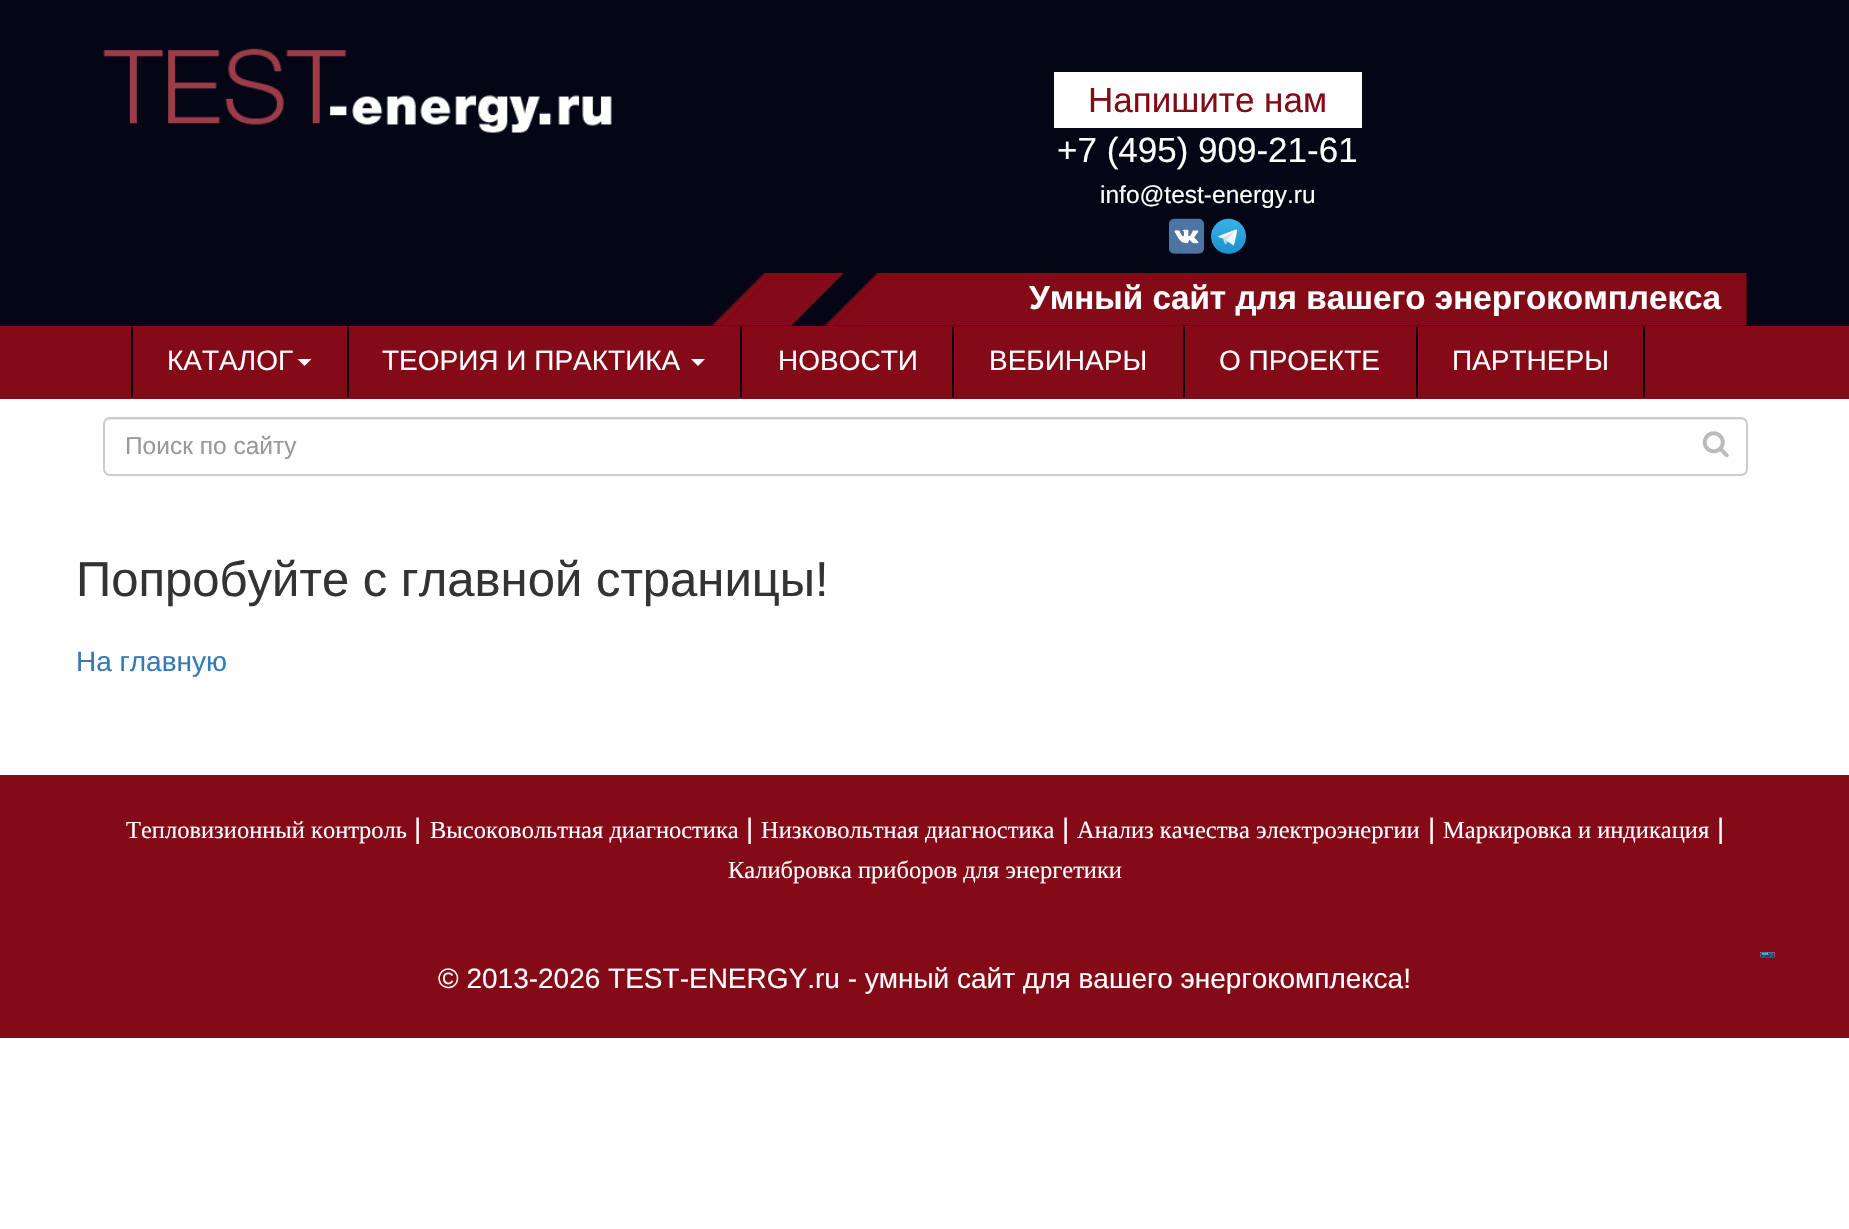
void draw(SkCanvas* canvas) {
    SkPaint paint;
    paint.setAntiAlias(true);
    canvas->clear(0xFFFFFFFF);
    paint.setColor(0xFF040616);
    canvas->drawRect(SkRect::MakeXYWH(0, 0, 1849, 326), paint);
    canvas->drawImageRect(SkImages::DeferredFromEncodedData(SkData::MakeFromFileName("img1.png")), SkRect::MakeXYWH(103, 48, 509, 85), SkSamplingOptions());
    paint.setColor(0xFFFFFFFF);
    canvas->drawRect(SkRect::MakeXYWH(1054, 72, 308, 56), paint);
    SkFont font1(fontMgr->matchFamilyStyle("Liberation Sans", SkFontStyle::Normal()), 35);
    font1.setSubpixel(true);
    paint.setColor(0xFF830A16);
    canvas->drawString("Напишите нам", 1088, 112, font1, paint);
    paint.setColor(0xFFFFFFFF);
    canvas->drawString("+7 (495) 909-21-61", 1057, 162, font1, paint);
    SkFont font2(fontMgr->matchFamilyStyle("Liberation Sans", SkFontStyle::Normal()), 24.5f);
    font2.setSubpixel(true);
    canvas->drawString("info@test-energy.ru", 1100, 203, font2, paint);
    canvas->drawImageRect(SkImages::DeferredFromEncodedData(SkData::MakeFromFileName("img2.png")), SkRect::MakeXYWH(1169, 218, 35, 36), SkSamplingOptions());
    canvas->drawImageRect(SkImages::DeferredFromEncodedData(SkData::MakeFromFileName("img3.png")), SkRect::MakeXYWH(1211, 218, 35, 36), SkSamplingOptions());
    canvas->drawImageRect(SkImages::DeferredFromEncodedData(SkData::MakeFromFileName("img4.png")), SkRect::MakeXYWH(711, 273, 1036, 53), SkSamplingOptions());
    SkFont font3(fontMgr->matchFamilyStyle("Liberation Sans", SkFontStyle::Bold()), 33.25f);
    font3.setSubpixel(true);
    canvas->drawString("Умный сайт для вашего энергокомплекса", 1029, 309, font3, paint);
    paint.setColor(0xFF830A16);
    canvas->drawRect(SkRect::MakeXYWH(0, 326, 1849, 73), paint);
    paint.setColor(0xFF000000);
    canvas->drawRect(SkRect::MakeXYWH(347, 327, 2, 70), paint);
    canvas->drawRect(SkRect::MakeXYWH(131, 327, 2, 70), paint);
    SkFont font4(fontMgr->matchFamilyStyle("Liberation Sans", SkFontStyle::Normal()), 28);
    font4.setSubpixel(true);
    paint.setColor(0xFFFFFFFF);
    canvas->drawString("КАТАЛОГ", 167, 370, font4, paint);
    canvas->drawPath(SkPathBuilder().moveTo(297.5f, 359).lineTo(311.5f, 359).lineTo(304.5f, 366).close().detach(), paint);
    paint.setColor(0xFF000000);
    canvas->drawRect(SkRect::MakeXYWH(740, 327, 2, 70), paint);
    paint.setColor(0xFFFFFFFF);
    canvas->drawString("ТЕОРИЯ И ПРАКТИКА", 382, 370, font4, paint);
    canvas->drawPath(SkPathBuilder().moveTo(691, 359).lineTo(705, 359).lineTo(698, 366).close().detach(), paint);
    paint.setColor(0xFF000000);
    canvas->drawRect(SkRect::MakeXYWH(952, 327, 2, 70), paint);
    paint.setColor(0xFFFFFFFF);
    canvas->drawString("НОВОСТИ", 778, 370, font4, paint);
    paint.setColor(0xFF000000);
    canvas->drawRect(SkRect::MakeXYWH(1183, 327, 2, 70), paint);
    paint.setColor(0xFFFFFFFF);
    canvas->drawString("ВЕБИНАРЫ", 989, 370, font4, paint);
    paint.setColor(0xFF000000);
    canvas->drawRect(SkRect::MakeXYWH(1416, 327, 2, 70), paint);
    paint.setColor(0xFFFFFFFF);
    canvas->drawString("О ПРОЕКТЕ", 1219, 370, font4, paint);
    paint.setColor(0xFF000000);
    canvas->drawRect(SkRect::MakeXYWH(1643, 327, 2, 70), paint);
    paint.setColor(0xFFFFFFFF);
    canvas->drawString("ПАРТНЕРЫ", 1452, 370, font4, paint);
    paint.setColor(0xFFECECEC);
    canvas->drawPath(SkPathBuilder().moveTo(110, 420).lineTo(1741, 420).cubicTo(1744, 420, 1746, 422, 1746, 425).lineTo(1746, 472).cubicTo(1747, 471, 1747, 470, 1747, 469).lineTo(1747, 423).cubicTo(1747, 420, 1745, 418, 1742, 418).lineTo(110, 418).cubicTo(107, 418, 105, 420, 105, 423).lineTo(105, 425).cubicTo(105, 422, 107, 420, 110, 420).close().detach(), paint);
    paint.setStyle(SkPaint::kStroke_Style);
    paint.setStrokeWidth(2);
    paint.setColor(0xFFCCCCCC);
    canvas->drawRoundRect(SkRect::MakeXYWH(104, 418, 1643, 57), 6, 6, paint);
    paint.setStyle(SkPaint::kFill_Style);
    paint.setColor(0xFF999999);
    canvas->drawString("Поиск по сайту", 125, 454, font2, paint);
    canvas->drawImageRect(SkImages::DeferredFromEncodedData(SkData::MakeFromFileName("img5.png")), SkRect::MakeXYWH(1702, 431, 27, 27), SkSamplingOptions());
    SkFont font5(fontMgr->matchFamilyStyle("Liberation Sans", SkFontStyle::Normal()), 49);
    font5.setSubpixel(true);
    paint.setColor(0xFF333333);
    canvas->drawString("Попробуйте с главной страницы!", 76, 596, font5, paint);
    paint.setColor(0xFF337AB7);
    canvas->drawString("На главную", 76, 671, font4, paint);
    paint.setColor(0xFF830A16);
    canvas->drawRect(SkRect::MakeXYWH(0, 775, 1849, 263), paint);
    SkFont font6(fontMgr->matchFamilyStyle("Liberation Serif", SkFontStyle::Normal()), 24.5f);
    font6.setSubpixel(true);
    paint.setColor(0xFFFFFFFF);
    canvas->drawString("Тепловизионный контроль", 126, 838, font6, paint);
    canvas->drawString("|", 414, 838, font4, paint);
    canvas->drawString("Высоковольтная диагностика", 430, 838, font6, paint);
    canvas->drawString("|", 746, 838, font4, paint);
    canvas->drawString("Низковольтная диагностика", 761, 838, font6, paint);
    canvas->drawString("|", 1062, 838, font4, paint);
    canvas->drawString("Анализ качества электроэнергии", 1077, 838, font6, paint);
    canvas->drawString("|", 1428, 838, font4, paint);
    canvas->drawString("Маркировка и индикация", 1443, 838, font6, paint);
    canvas->drawString("|", 1717, 838, font4, paint);
    canvas->drawString("Калибровка приборов для энергетики", 728, 878, font6, paint);
    canvas->drawImageRect(SkImages::DeferredFromEncodedData(SkData::MakeFromFileName("img6.png")), SkRect::MakeXYWH(1760, 952, 15, 6), SkSamplingOptions());
    canvas->drawString("© 2013-2026 TEST-ENERGY.ru - умный сайт для вашего энергокомплекса!", 438, 988, font4, paint);
}
